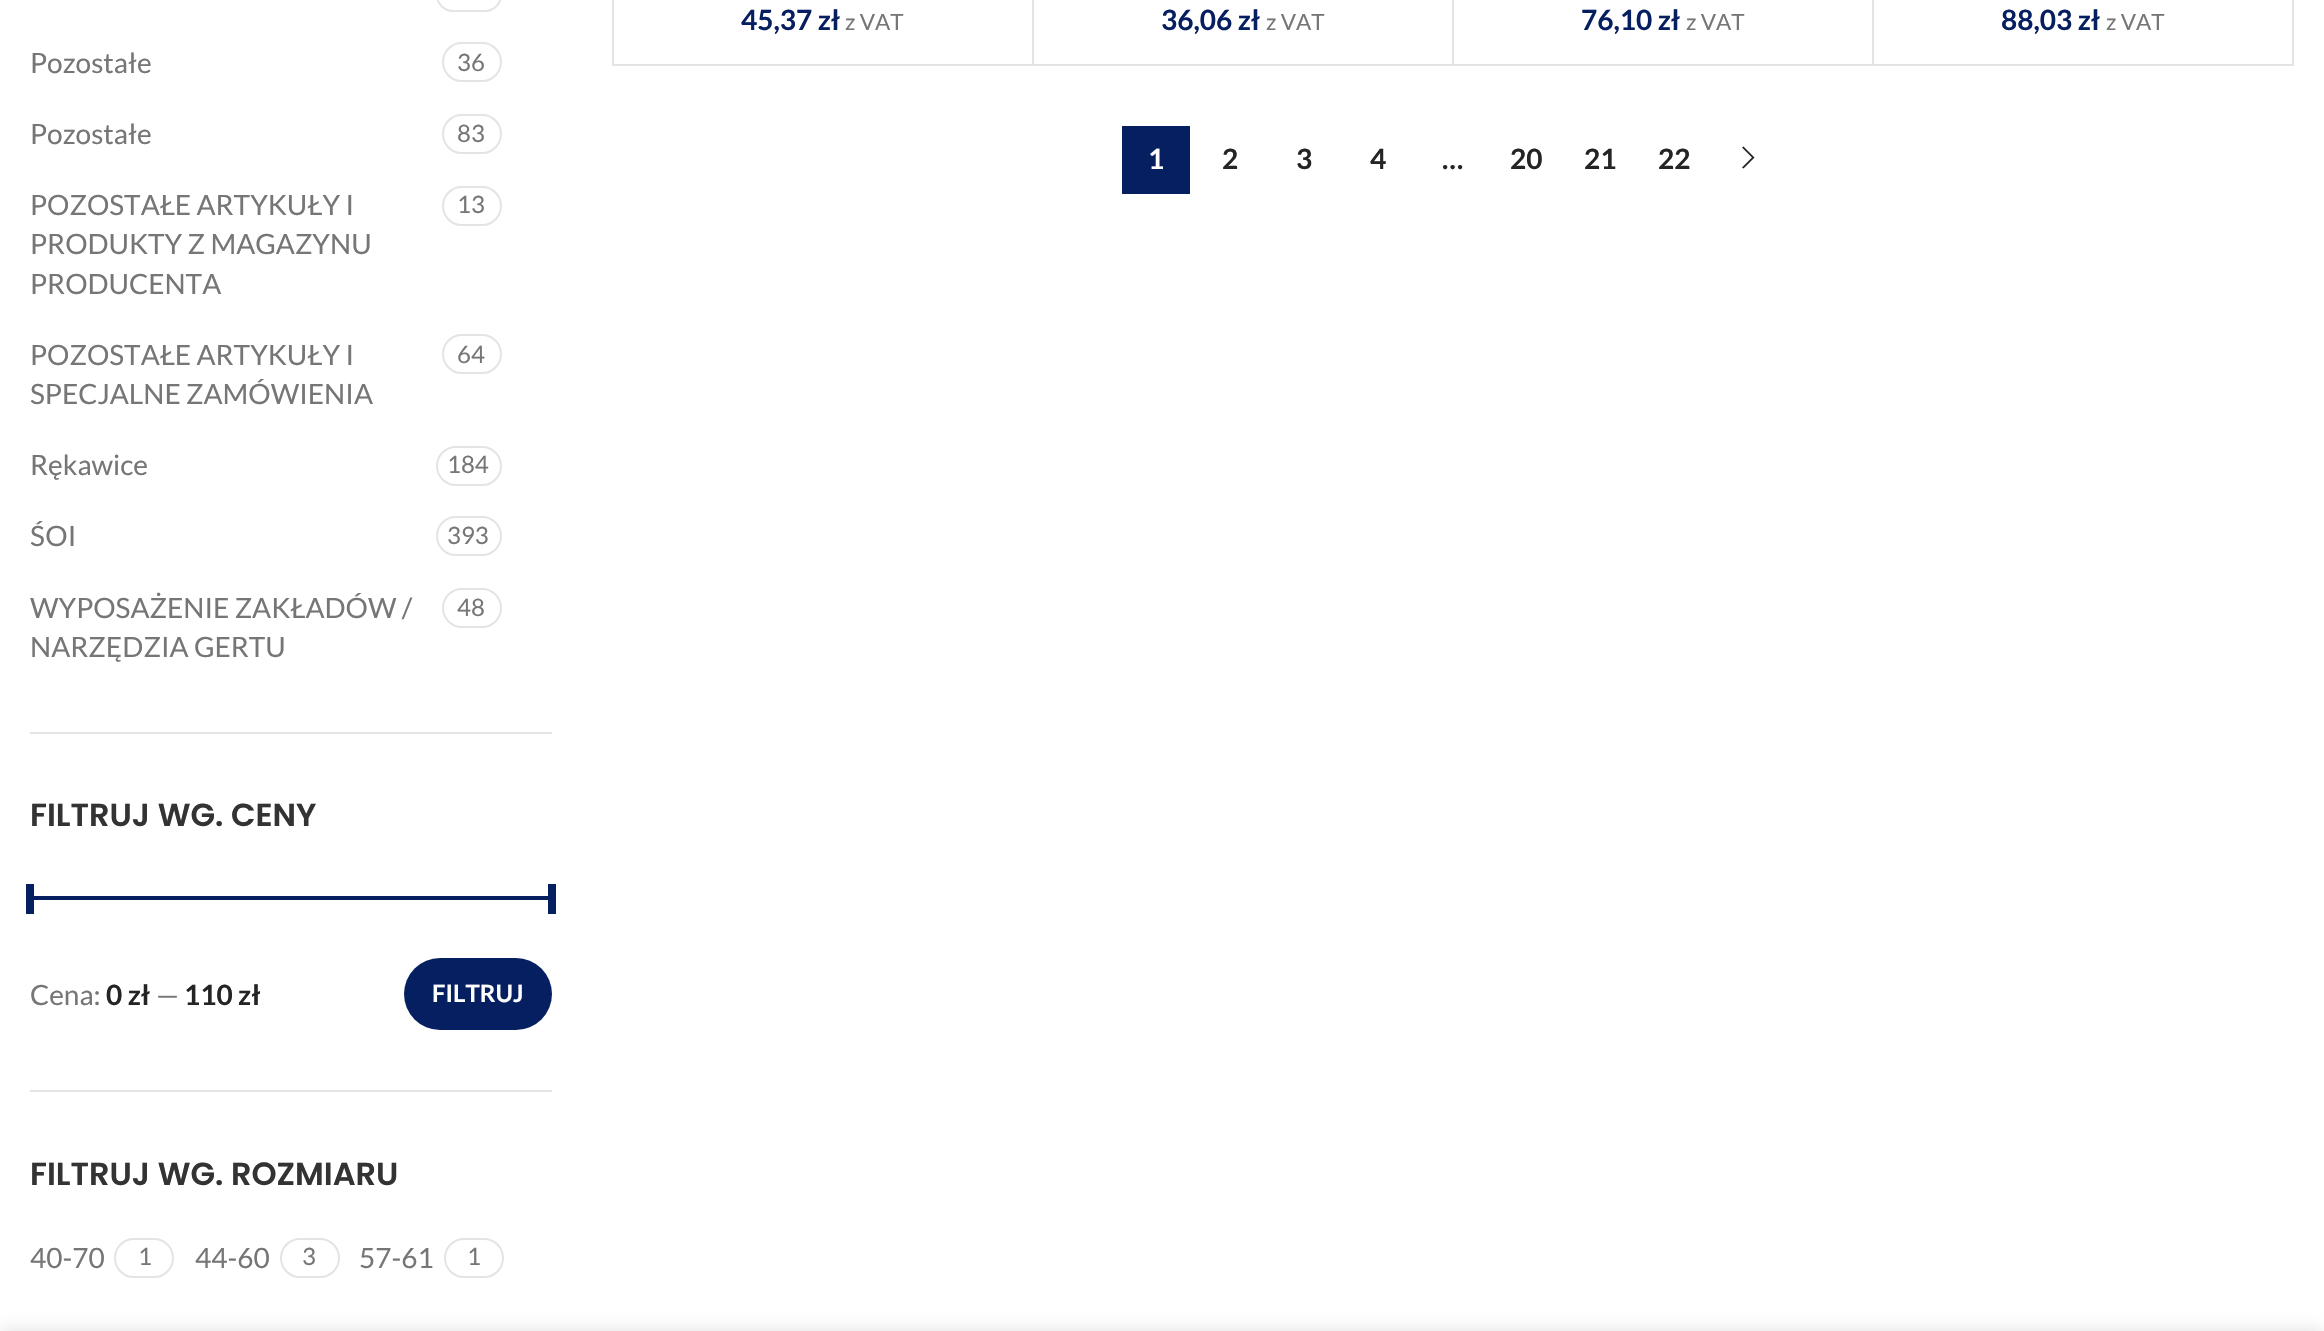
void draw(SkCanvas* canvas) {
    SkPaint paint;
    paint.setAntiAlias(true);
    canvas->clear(0xFFFFFFFF);
    paint.setColor(0xFFE4E4E4);
    canvas->drawRect(SkRect::MakeXYWH(30, 732, 522, 2), paint);
    paint.setStyle(SkPaint::kStroke_Style);
    paint.setStrokeWidth(2);
    canvas->drawRoundRect(SkRect::MakeXYWH(437, -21, 64, 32), 19, 19, paint);
    SkFont font1(fontMgr->matchFamilyStyle("Lato", SkFontStyle::Normal()), 28);
    font1.setSubpixel(true);
    paint.setStyle(SkPaint::kFill_Style);
    paint.setColor(0xFF767676);
    canvas->drawString("Pozostałe", 30, 73, font1, paint);
    paint.setStyle(SkPaint::kStroke_Style);
    paint.setColor(0xFFE4E4E4);
    canvas->drawRoundRect(SkRect::MakeXYWH(443, 43, 58, 38), 19, 19, paint);
    SkFont font2(fontMgr->matchFamilyStyle("Lato", SkFontStyle::Normal()), 24);
    font2.setSubpixel(true);
    paint.setStyle(SkPaint::kFill_Style);
    paint.setColor(0xFF767676);
    canvas->drawString("36", 457, 71, font2, paint);
    canvas->drawString("Pozostałe", 30, 144, font1, paint);
    paint.setStyle(SkPaint::kStroke_Style);
    paint.setColor(0xFFE4E4E4);
    canvas->drawRoundRect(SkRect::MakeXYWH(443, 115, 58, 38), 19, 19, paint);
    paint.setStyle(SkPaint::kFill_Style);
    paint.setColor(0xFF767676);
    canvas->drawString("83", 457, 142, font2, paint);
    canvas->drawString("POZOSTAŁE ARTYKUŁY I", 30, 215, font1, paint);
    canvas->drawString("PRODUKTY Z MAGAZYNU", 30, 254, font1, paint);
    canvas->drawString("PRODUCENTA", 30, 294, font1, paint);
    paint.setStyle(SkPaint::kStroke_Style);
    paint.setColor(0xFFE4E4E4);
    canvas->drawRoundRect(SkRect::MakeXYWH(443, 187, 58, 38), 19, 19, paint);
    paint.setStyle(SkPaint::kFill_Style);
    paint.setColor(0xFF767676);
    canvas->drawString("13", 457, 213, font2, paint);
    canvas->drawString("POZOSTAŁE ARTYKUŁY I", 30, 365, font1, paint);
    canvas->drawString("SPECJALNE ZAMÓWIENIA", 30, 404, font1, paint);
    paint.setStyle(SkPaint::kStroke_Style);
    paint.setColor(0xFFE4E4E4);
    canvas->drawRoundRect(SkRect::MakeXYWH(443, 335, 58, 38), 19, 19, paint);
    paint.setStyle(SkPaint::kFill_Style);
    paint.setColor(0xFF767676);
    canvas->drawString("64", 457, 363, font2, paint);
    canvas->drawString("Rękawice", 30, 475, font1, paint);
    paint.setStyle(SkPaint::kStroke_Style);
    paint.setColor(0xFFE4E4E4);
    canvas->drawRoundRect(SkRect::MakeXYWH(437, 447, 64, 38), 19, 19, paint);
    paint.setStyle(SkPaint::kFill_Style);
    paint.setColor(0xFF767676);
    canvas->drawString("184", 447, 473, font2, paint);
    canvas->drawString("ŚOI", 30, 546, font1, paint);
    paint.setStyle(SkPaint::kStroke_Style);
    paint.setColor(0xFFE4E4E4);
    canvas->drawRoundRect(SkRect::MakeXYWH(437, 517, 64, 38), 19, 19, paint);
    paint.setStyle(SkPaint::kFill_Style);
    paint.setColor(0xFF767676);
    canvas->drawString("393", 447, 544, font2, paint);
    canvas->drawString("WYPOSAŻENIE ZAKŁADÓW /", 30, 618, font1, paint);
    canvas->drawString("NARZĘDZIA GERTU", 30, 657, font1, paint);
    paint.setStyle(SkPaint::kStroke_Style);
    paint.setColor(0xFFE4E4E4);
    canvas->drawRoundRect(SkRect::MakeXYWH(443, 589, 58, 38), 19, 19, paint);
    paint.setStyle(SkPaint::kFill_Style);
    paint.setColor(0xFF767676);
    canvas->drawString("48", 457, 616, font2, paint);
    paint.setColor(0xFFE4E4E4);
    canvas->drawRect(SkRect::MakeXYWH(30, 1090, 522, 2), paint);
    SkFont font3(fontMgr->matchFamilyStyle("Poppins", SkFontStyle(600, SkFontStyle::kNormal_Width, SkFontStyle::kUpright_Slant)), 32);
    font3.setSubpixel(true);
    paint.setColor(0xFF333333);
    canvas->drawString("FILTRUJ WG. CENY", 30, 826, font3, paint);
    paint.setColor(0xFF061F61);
    canvas->drawRect(SkRect::MakeXYWH(30, 896, 522, 4), paint);
    canvas->drawRect(SkRect::MakeXYWH(26, 884, 8, 30), paint);
    canvas->drawRect(SkRect::MakeXYWH(548, 884, 8, 30), paint);
    paint.setColor(0xFF767676);
    canvas->drawString("Cena:", 30, 1005, font1, paint);
    SkFont font4(fontMgr->matchFamilyStyle("Lato", SkFontStyle::Bold()), 28);
    font4.setSubpixel(true);
    paint.setColor(0xFF242424);
    canvas->drawString("0 zł", 106, 1005, font4, paint);
    paint.setColor(0xFF767676);
    canvas->drawString("—", 156, 1005, font1, paint);
    paint.setColor(0xFF242424);
    canvas->drawString("110 zł", 184, 1005, font4, paint);
    paint.setColor(0xFF061F61);
    canvas->drawRoundRect(SkRect::MakeXYWH(404, 958, 148, 72), 36, 36, paint);
    SkFont font5(fontMgr->matchFamilyStyle("Lato", SkFontStyle::Bold()), 24);
    font5.setSubpixel(true);
    paint.setColor(0xFFFFFFFF);
    canvas->drawString("FILTRUJ", 432, 1002, font5, paint);
    paint.setColor(0xFF333333);
    canvas->drawString("FILTRUJ WG. ROZMIARU", 30, 1185, font3, paint);
    paint.setColor(0xFF767676);
    canvas->drawString("40-70", 30, 1268, font1, paint);
    paint.setStyle(SkPaint::kStroke_Style);
    paint.setColor(0xFFE4E4E4);
    canvas->drawRoundRect(SkRect::MakeXYWH(115, 1239, 58, 38), 19, 19, paint);
    paint.setStyle(SkPaint::kFill_Style);
    paint.setColor(0xFF767676);
    canvas->drawString("1", 138, 1265, font2, paint);
    canvas->drawString("44-60", 195, 1268, font1, paint);
    paint.setStyle(SkPaint::kStroke_Style);
    paint.setColor(0xFFE4E4E4);
    canvas->drawRoundRect(SkRect::MakeXYWH(281, 1239, 58, 38), 19, 19, paint);
    paint.setStyle(SkPaint::kFill_Style);
    paint.setColor(0xFF767676);
    canvas->drawString("3", 302, 1265, font2, paint);
    canvas->drawString("57-61", 359, 1268, font1, paint);
    paint.setStyle(SkPaint::kStroke_Style);
    paint.setColor(0xFFE4E4E4);
    canvas->drawRoundRect(SkRect::MakeXYWH(445, 1239, 58, 38), 19, 19, paint);
    paint.setStyle(SkPaint::kFill_Style);
    paint.setColor(0xFF767676);
    canvas->drawString("1", 467, 1265, font2, paint);
    paint.setColor(0xFFE4E4E4);
    canvas->drawRect(SkRect::MakeXYWH(612, 0, 2, 66), paint);
    canvas->drawPath(SkPathBuilder().moveTo(1034, -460).lineTo(1034, 66).lineTo(1032, 64).lineTo(1032, -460).close().detach(), paint);
    paint.setColor(0x1C000000);
    canvas->drawPath(SkPathBuilder().moveTo(1034, 66).lineTo(614, 66).lineTo(614, 64).lineTo(1032, 64).close().detach(), paint);
    paint.setColor(0xFF061F61);
    canvas->drawString("45,37 zł", 741, 30, font4, paint);
    SkFont font6(fontMgr->matchFamilyStyle("Lato", SkFontStyle::Normal()), 22.5f);
    font6.setSubpixel(true);
    paint.setColor(0xFF767676);
    canvas->drawString("z VAT", 845, 30, font6, paint);
    paint.setColor(0xFFE4E4E4);
    canvas->drawPath(SkPathBuilder().moveTo(1454, -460).lineTo(1454, 66).lineTo(1452, 64).lineTo(1452, -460).close().detach(), paint);
    paint.setColor(0x1C000000);
    canvas->drawPath(SkPathBuilder().moveTo(1454, 66).lineTo(1034, 66).lineTo(1034, 64).lineTo(1452, 64).close().detach(), paint);
    paint.setColor(0xFF061F61);
    canvas->drawString("36,06 zł", 1161, 30, font4, paint);
    paint.setColor(0xFF767676);
    canvas->drawString("z VAT", 1266, 30, font6, paint);
    paint.setColor(0xFFE4E4E4);
    canvas->drawPath(SkPathBuilder().moveTo(1874, -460).lineTo(1874, 66).lineTo(1872, 64).lineTo(1872, -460).close().detach(), paint);
    paint.setColor(0x1C000000);
    canvas->drawPath(SkPathBuilder().moveTo(1874, 66).lineTo(1454, 66).lineTo(1454, 64).lineTo(1872, 64).close().detach(), paint);
    paint.setColor(0xFF061F61);
    canvas->drawString("76,10 zł", 1581, 30, font4, paint);
    paint.setColor(0xFF767676);
    canvas->drawString("z VAT", 1686, 30, font6, paint);
    paint.setColor(0xFFE4E4E4);
    canvas->drawPath(SkPathBuilder().moveTo(2294, -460).lineTo(2294, 66).lineTo(2292, 64).lineTo(2292, -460).close().detach(), paint);
    paint.setColor(0x1C000000);
    canvas->drawPath(SkPathBuilder().moveTo(2294, 66).lineTo(1874, 66).lineTo(1874, 64).lineTo(2292, 64).close().detach(), paint);
    paint.setColor(0xFF061F61);
    canvas->drawString("88,03 zł", 2001, 30, font4, paint);
    paint.setColor(0xFF767676);
    canvas->drawString("z VAT", 2106, 30, font6, paint);
    paint.setColor(0xFF061F61);
    canvas->drawRect(SkRect::MakeXYWH(1122, 126, 68, 68), paint);
    paint.setColor(0xFFFFFFFF);
    canvas->drawString("1", 1148, 169, font4, paint);
    paint.setColor(0xFF242424);
    canvas->drawString("2", 1222, 169, font4, paint);
    canvas->drawString("3", 1296, 169, font4, paint);
    canvas->drawString("4", 1370, 169, font4, paint);
    canvas->drawString("…", 1442, 169, font4, paint);
    canvas->drawString("20", 1510, 169, font4, paint);
    canvas->drawString("21", 1584, 169, font4, paint);
    canvas->drawString("22", 1658, 169, font4, paint);
    canvas->drawPath(SkPathBuilder().moveTo(1742, 147.5f).lineTo(1752, 157.5f).lineTo(1742, 167.5f).lineTo(1743.5f, 168.5f).lineTo(1754.5f, 157.5f).lineTo(1743.5f, 146.5f).close().detach(), paint);
    paint.setColor(0x24000000);
    paint.setMaskFilter(SkMaskFilter::MakeBlur(kNormal_SkBlurStyle, 9));
    canvas->drawRect(SkRect::MakeXYWH(0, 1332, 2324, 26), paint);
    paint.setMaskFilter(nullptr);
}
